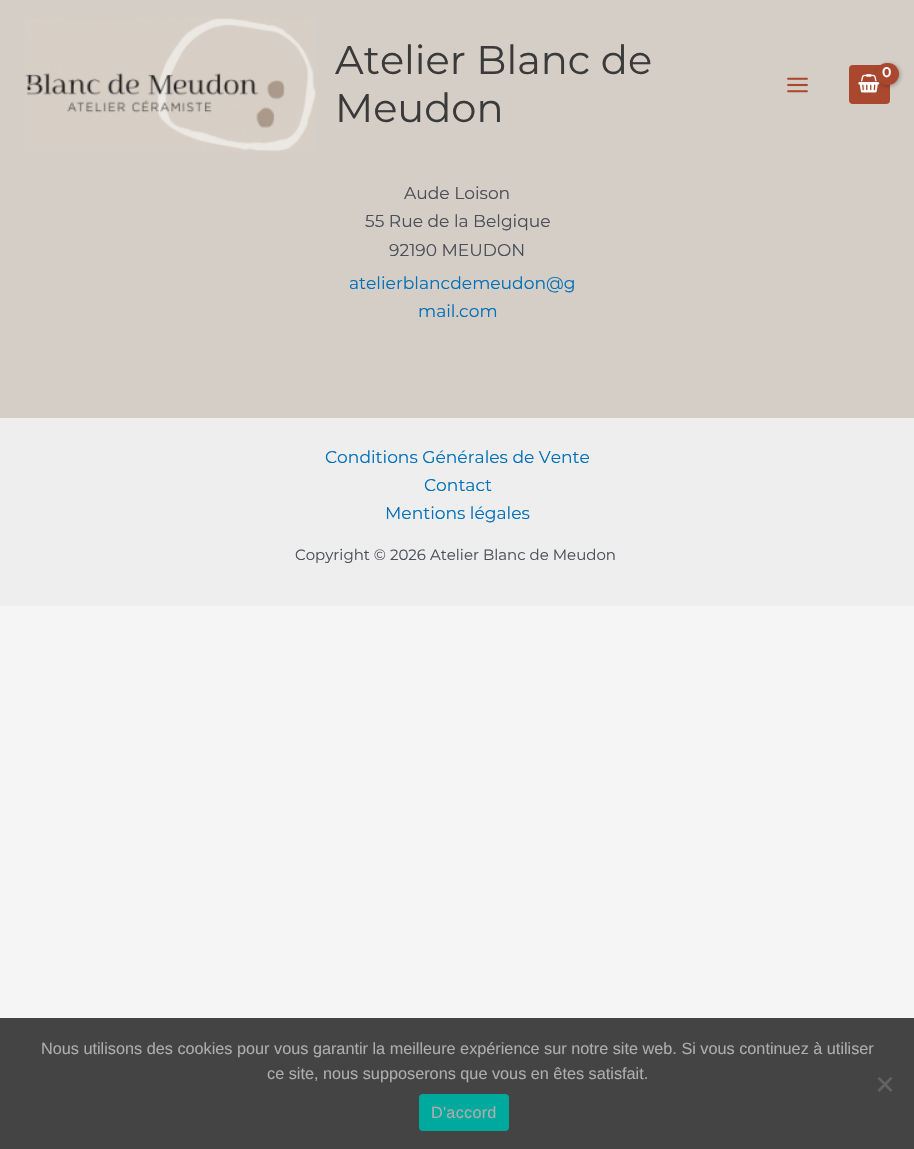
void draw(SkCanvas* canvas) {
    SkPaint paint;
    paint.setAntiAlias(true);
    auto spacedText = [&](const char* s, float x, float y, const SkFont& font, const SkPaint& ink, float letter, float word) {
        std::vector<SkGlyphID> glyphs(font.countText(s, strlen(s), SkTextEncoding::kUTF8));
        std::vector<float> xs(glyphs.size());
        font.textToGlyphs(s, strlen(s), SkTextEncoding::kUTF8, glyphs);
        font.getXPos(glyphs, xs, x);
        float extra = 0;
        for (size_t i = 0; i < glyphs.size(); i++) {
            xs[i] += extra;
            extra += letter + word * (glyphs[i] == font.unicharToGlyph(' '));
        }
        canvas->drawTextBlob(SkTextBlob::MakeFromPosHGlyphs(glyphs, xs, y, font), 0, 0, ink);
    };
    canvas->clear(0xFFF5F5F5);
    paint.setColor(0xFFD5CEC6);
    canvas->drawRect(SkRect::MakeXYWH(0, 0, 914, 418), paint);
    canvas->drawImageRect(SkImages::DeferredFromEncodedData(SkData::MakeFromFileName("img1.png")), SkRect::MakeXYWH(25, 18, 291, 134), SkSamplingOptions());
    SkFont font1(fontMgr->matchFamilyStyle("Montserrat", SkFontStyle::Normal()), 40);
    font1.setSubpixel(true);
    paint.setColor(0xFF3A3A3A);
    canvas->drawString("Atelier Blanc de", 335, 74, font1, paint);
    canvas->drawString("Meudon", 335, 122, font1, paint);
    paint.setColor(0xFFA9482E);
    canvas->drawRoundRect(SkRect::MakeXYWH(849, 65, 41, 39), 4, 4, paint);
    canvas->drawImageRect(SkImages::DeferredFromEncodedData(SkData::MakeFromFileName("img2.png")), SkRect::MakeXYWH(858, 74, 22, 19), SkSamplingOptions());
    paint.setColor(0x4D000000);
    paint.setMaskFilter(SkMaskFilter::MakeBlur(kNormal_SkBlurStyle, 2));
    canvas->drawRoundRect(SkRect::MakeXYWH(878, 64, 22, 22), 11, 11, paint);
    paint.setMaskFilter(nullptr);
    paint.setColor(0xFFA9482E);
    canvas->drawRoundRect(SkRect::MakeXYWH(876, 63, 23, 22), 11, 11, paint);
    SkFont font2(fontMgr->matchFamilyStyle("Montserrat", SkFontStyle(600, SkFontStyle::kNormal_Width, SkFontStyle::kUpright_Slant)), 14);
    font2.setSubpixel(true);
    paint.setColor(0xFFFFFFFF);
    spacedText("0", 882, 77, font2, paint, -1, 0);
    canvas->drawImageRect(SkImages::DeferredFromEncodedData(SkData::MakeFromFileName("img3.png")), SkRect::MakeXYWH(787, 77, 21, 16), SkSamplingOptions());
    SkFont font3(fontMgr->matchFamilyStyle("Montserrat", SkFontStyle::Normal()), 17.1f);
    font3.setSubpixel(true);
    paint.setColor(0xFF4B4F58);
    canvas->drawString("Aude Loison", 404, 199, font3, paint);
    canvas->drawString("55 Rue de la Belgique", 365, 227, font3, paint);
    canvas->drawString("92190 MEUDON", 389, 256, font3, paint);
    paint.setColor(0xFF0170B9);
    canvas->drawString("atelierblancdemeudon@g", 349, 289, font3, paint);
    canvas->drawString("mail.com", 418, 317, font3, paint);
    paint.setColor(0xFFEEEEEE);
    canvas->drawRect(SkRect::MakeXYWH(0, 418, 914, 188), paint);
    paint.setColor(0xFF0170B9);
    canvas->drawString("Conditions Générales de Vente", 325, 463, font3, paint);
    canvas->drawString("Contact", 424, 491, font3, paint);
    canvas->drawString("Mentions légales", 385, 519, font3, paint);
    SkFont font4(fontMgr->matchFamilyStyle("Montserrat", SkFontStyle::Normal()), 15);
    font4.setSubpixel(true);
    paint.setColor(0xFF4B4F58);
    canvas->drawString("Copyright © 2026 Atelier Blanc de Meudon", 295, 560, font4, paint);
    paint.setColor(0xFF444444);
    canvas->drawRect(SkRect::MakeXYWH(0, 1018, 914, 131), paint);
    SkFont font5(fontMgr->matchFamilyStyle("Liberation Sans", SkFontStyle::Normal()), 16.25f);
    font5.setSubpixel(true);
    paint.setColor(0xFFADADAD);
    canvas->drawString("Nous utilisons des cookies pour vous garantir la meilleure expérience sur notre site web. Si vous continuez à utiliser", 41, 1054, font5, paint);
    canvas->drawString("ce site, nous supposerons que vous en êtes satisfait.", 267, 1079, font5, paint);
    paint.setColor(0xFF626262);
    canvas->drawPath(SkPathBuilder().moveTo(890.5f, 1077).lineTo(892.5f, 1078.5f).lineTo(879.5f, 1092).lineTo(877.5f, 1090).close().detach(), paint);
    canvas->drawPath(SkPathBuilder().moveTo(877.5f, 1078.5f).lineTo(879.5f, 1077).lineTo(892.5f, 1090).lineTo(890.5f, 1092).close().detach(), paint);
    paint.setColor(0xFF00A99D);
    canvas->drawRoundRect(SkRect::MakeXYWH(419, 1094, 90, 37), 4, 4, paint);
    paint.setColor(0xFFADADAD);
    spacedText("D'accord", 431, 1118, font5, paint, 0.25f, 0);
}
